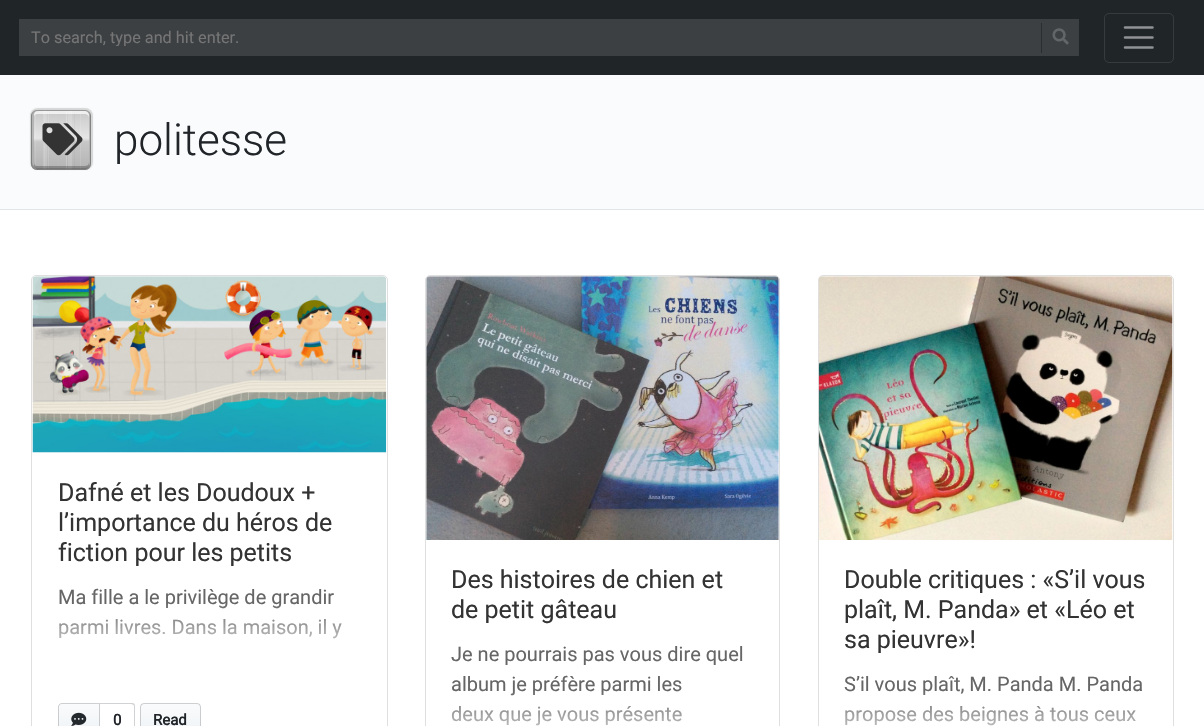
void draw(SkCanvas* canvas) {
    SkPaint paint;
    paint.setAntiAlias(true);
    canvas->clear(0xFFFFFFFF);
    paint.setColor(0xFF202528);
    canvas->drawRect(SkRect::MakeXYWH(0, 0, 1204, 75), paint);
    paint.setColor(0xFF3C4043);
    canvas->drawRect(SkRect::MakeXYWH(19, 19, 1060, 37), paint);
    canvas->save();
    canvas->clipRect(SkRect::MakeXYWH(31, 28, 998, 18));
    SkFont font1(fontMgr->matchFamilyStyle("Roboto", SkFontStyle::Normal()), 16.25f);
    font1.setSubpixel(true);
    paint.setColor(0xFF757575);
    canvas->drawString("To search, type and hit enter.", 31, 43, font1, paint);
    canvas->restore();
    paint.setColor(0xFF2A2D2F);
    canvas->drawRect(SkRect::MakeXYWH(1041, 23, 1, 30), paint);
    canvas->drawImageRect(SkImages::DeferredFromEncodedData(SkData::MakeFromFileName("img1.png")), SkRect::MakeXYWH(1052, 28, 17, 17), SkSamplingOptions());
    paint.setStyle(SkPaint::kStroke_Style);
    paint.setStrokeWidth(1);
    paint.setColor(0xFF363B3E);
    canvas->drawRoundRect(SkRect::MakeXYWH(1104.5f, 13.5f, 69, 49), 4.5f, 4.5f, paint);
    paint.setStrokeWidth(2.5f);
    paint.setStrokeCap(SkPaint::kRound_Cap);
    paint.setColor(0xFF909294);
    canvas->drawPath(SkPathBuilder().moveTo(1125, 27.5f).lineTo(1152.5f, 27.5f).moveTo(1125, 37.5f).lineTo(1152.5f, 37.5f).moveTo(1125, 47.5f).lineTo(1152.5f, 47.5f).detach(), paint);
    paint.setStyle(SkPaint::kFill_Style);
    paint.setColor(0xFFFAFBFC);
    canvas->drawRect(SkRect::MakeXYWH(0, 75, 1204, 134), paint);
    paint.setColor(0xFFE1E4E8);
    canvas->drawRect(SkRect::MakeXYWH(0, 209, 1204, 1), paint);
    paint.setColor(0x26000000);
    paint.setMaskFilter(SkMaskFilter::MakeBlur(kNormal_SkBlurStyle, 0.5f));
    canvas->drawRoundRect(SkRect::MakeXYWH(30, 108, 63, 62), 8, 8, paint);
    paint.setMaskFilter(nullptr);
    {
        const SkColor colors[] = {0xFFC7C7C7, 0xFFE6E6E6, 0xFFC7C7C7, 0xFFB3B3B3};
        const float stops[] = {0, 0.47f, 0.53f, 1};
        const SkPoint ends[] = {{61, 110}, {61, 170}};
        paint.setShader(SkGradientShader::MakeLinear(ends, colors, stops, 4, SkTileMode::kClamp));
        paint.setAlpha(255);
    }
    canvas->drawRoundRect(SkRect::MakeXYWH(31, 110, 60, 60), 6, 6, paint);
    canvas->drawImageRect(SkImages::DeferredFromEncodedData(SkData::MakeFromFileName("img2.png")), SkRect::MakeXYWH(43, 110, 48, 60), SkSamplingOptions());
    canvas->drawImageRect(SkImages::DeferredFromEncodedData(SkData::MakeFromFileName("img3.png")), SkRect::MakeXYWH(58, 110, 33, 60), SkSamplingOptions());
    canvas->drawImageRect(SkImages::DeferredFromEncodedData(SkData::MakeFromFileName("img4.png")), SkRect::MakeXYWH(35, 110, 55, 60), SkSamplingOptions());
    paint.setShader(nullptr);
    paint.setColor(0xB3FFFFFF);
    canvas->drawPath(SkPathBuilder(SkPathFillType::kEvenOdd).moveTo(37, 110).cubicTo(34, 110, 31, 113, 31, 116).lineTo(31, 164).cubicTo(31, 167, 34, 170, 37, 170).lineTo(85, 170).cubicTo(88, 170, 91, 167, 91, 164).lineTo(91, 116).cubicTo(91, 113, 88, 110, 85, 110).close().moveTo(38, 114).cubicTo(35, 114, 34, 115, 34, 118).lineTo(34, 165).cubicTo(34, 167, 35, 169, 38, 169).lineTo(85, 169).cubicTo(87, 169, 89, 167, 89, 165).lineTo(89, 118).cubicTo(89, 115, 87, 114, 85, 114).close().detach(), paint);
    paint.setColor(0x40000000);
    canvas->drawPath(SkPathBuilder(SkPathFillType::kEvenOdd).moveTo(37, 110).cubicTo(34, 110, 31, 113, 31, 116).lineTo(31, 164).cubicTo(31, 167, 34, 170, 37, 170).lineTo(85, 170).cubicTo(88, 170, 91, 167, 91, 164).lineTo(91, 116).cubicTo(91, 113, 88, 110, 85, 110).close().moveTo(38, 111).cubicTo(35, 111, 34, 113, 34, 115).lineTo(34, 162).cubicTo(34, 165, 35, 166, 38, 166).lineTo(85, 166).cubicTo(87, 166, 89, 165, 89, 162).lineTo(89, 115).cubicTo(89, 113, 87, 111, 85, 111).close().detach(), paint);
    paint.setColor(0x33262626);
    canvas->drawPath(SkPathBuilder().moveTo(37, 110).cubicTo(34, 110, 31, 113, 31, 116).lineTo(31, 164).cubicTo(31, 167, 34, 170, 37, 170).lineTo(85, 170).cubicTo(88, 170, 91, 167, 91, 164).lineTo(91, 116).cubicTo(91, 113, 89, 111, 87, 110).cubicTo(89, 111, 90, 113, 90, 115).lineTo(90, 162).cubicTo(90, 165, 88, 168, 85, 168).lineTo(38, 168).cubicTo(35, 168, 32, 165, 32, 162).lineTo(32, 115).cubicTo(32, 112, 35, 110, 38, 110).close().detach(), paint);
    paint.setStyle(SkPaint::kStroke_Style);
    paint.setStrokeWidth(1);
    paint.setStrokeCap(SkPaint::kButt_Cap);
    canvas->drawRoundRect(SkRect::MakeXYWH(31.5f, 110.5f, 59, 59), 5.5f, 5.5f, paint);
    canvas->drawImageRect(SkImages::DeferredFromEncodedData(SkData::MakeFromFileName("img5.png")), SkRect::MakeXYWH(42, 123, 41, 33), SkSamplingOptions());
    SkFont font2(fontMgr->matchFamilyStyle("Roboto", SkFontStyle(300, SkFontStyle::kNormal_Width, SkFontStyle::kUpright_Slant)), 44);
    font2.setSubpixel(true);
    paint.setStyle(SkPaint::kFill_Style);
    paint.setColor(0xFF212529);
    canvas->drawString("politesse", 114, 155, font2, paint);
    paint.setStyle(SkPaint::kStroke_Style);
    paint.setColor(0xFFDFDFDF);
    canvas->drawRoundRect(SkRect::MakeXYWH(31.5f, 275.5f, 356, 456), 4.5f, 4.5f, paint);
    canvas->drawImageRect(SkImages::DeferredFromEncodedData(SkData::MakeFromFileName("img6.png")), SkRect::MakeXYWH(32, 276, 355, 177), SkSamplingOptions());
    SkFont font3(fontMgr->matchFamilyStyle("Roboto", SkFontStyle::Normal()), 25);
    font3.setSubpixel(true);
    paint.setStyle(SkPaint::kFill_Style);
    paint.setColor(0xFF333333);
    canvas->drawString("Dafné et les Doudoux +", 58, 501, font3, paint);
    canvas->drawString("l’importance du héros de", 58, 531, font3, paint);
    canvas->drawString("fiction pour les petits", 58, 561, font3, paint);
    SkFont font4(fontMgr->matchFamilyStyle("Roboto", SkFontStyle::Normal()), 20);
    font4.setSubpixel(true);
    paint.setColor(0xFF666666);
    canvas->drawString("Ma fille a le privilège de grandir", 58, 604, font4, paint);
    canvas->drawString("parmi livres. Dans la maison, il y", 58, 634, font4, paint);
    paint.setColor(0xFFD1D2D3);
    canvas->drawPath(SkPathBuilder(SkPathFillType::kEvenOdd).moveTo(100, 702.5f).lineTo(131, 702.5f).cubicTo(133.5f, 702.5f, 135, 704, 135, 706).lineTo(135, 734).cubicTo(135, 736, 133.5f, 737.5f, 131, 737.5f).lineTo(100, 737.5f).close().moveTo(100, 704).lineTo(131, 704).cubicTo(132.5f, 704, 134, 705, 134, 706).lineTo(134, 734).cubicTo(134, 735, 132.5f, 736, 131, 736).lineTo(100, 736).close().detach(), paint);
    {
        const SkColor colors[] = {0x00FFFFFF, 0x80FFFFFF, 0xE6FFFFFF, 0xFFFFFFFF};
        const float stops[] = {0, 0.33f, 0.67f, 1};
        const SkPoint ends[] = {{209, 603}, {209, 703}};
        paint.setShader(SkGradientShader::MakeLinear(ends, colors, stops, 4, SkTileMode::kClamp));
        paint.setAlpha(255);
    }
    canvas->drawRect(SkRect::MakeXYWH(58, 604, 283, 99), paint);
    {
        const SkColor colors[] = {0xFFFAFBFC, 0xFFEFF3F6};
        const float stops[] = {0, 0.9f};
        const SkPoint ends[] = {{80, 703}, {80, 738}};
        paint.setShader(SkGradientShader::MakeLinear(ends, colors, stops, 2, SkTileMode::kClamp));
        paint.setAlpha(255);
    }
    canvas->drawPath(SkPathBuilder().moveTo(62, 703).lineTo(100, 703).lineTo(100, 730).lineTo(62, 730).cubicTo(60, 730, 58, 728, 58, 726).lineTo(58, 707).cubicTo(58, 705, 60, 703, 62, 703).close().detach(), paint);
    paint.setStyle(SkPaint::kStroke_Style);
    paint.setShader(nullptr);
    paint.setColor(0x331B1F23);
    canvas->drawPath(SkPathBuilder().moveTo(62, 703.5f).lineTo(99.5f, 703.5f).lineTo(99.5f, 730.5f).lineTo(62, 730.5f).cubicTo(60, 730.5f, 58.5f, 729, 58.5f, 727).lineTo(58.5f, 707).cubicTo(58.5f, 705, 60, 703.5f, 62, 703.5f).close().detach(), paint);
    canvas->drawImageRect(SkImages::DeferredFromEncodedData(SkData::MakeFromFileName("img7.png")), SkRect::MakeXYWH(71, 712, 16, 14), SkSamplingOptions());
    SkFont font5(fontMgr->matchFamilyStyle("Roboto", SkFontStyle::Bold()), 15);
    font5.setSubpixel(true);
    paint.setStyle(SkPaint::kFill_Style);
    paint.setColor(0xFF212529);
    canvas->drawString("0", 113, 725, font5, paint);
    {
        const SkColor colors[] = {0xFFFAFBFC, 0xFFEFF3F6};
        const float stops[] = {0, 0.9f};
        const SkPoint ends[] = {{172, 703}, {172, 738}};
        paint.setShader(SkGradientShader::MakeLinear(ends, colors, stops, 2, SkTileMode::kClamp));
        paint.setAlpha(255);
    }
    canvas->drawRoundRect(SkRect::MakeXYWH(140, 703, 61, 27), 4, 4, paint);
    paint.setStyle(SkPaint::kStroke_Style);
    paint.setShader(nullptr);
    paint.setColor(0x331B1F23);
    canvas->drawRoundRect(SkRect::MakeXYWH(140.5f, 703.5f, 60, 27), 3.5f, 3.5f, paint);
    paint.setStyle(SkPaint::kFill_Style);
    paint.setColor(0xFF212529);
    canvas->drawString("Read", 153, 725, font5, paint);
    paint.setStyle(SkPaint::kStroke_Style);
    paint.setColor(0xFFDFDFDF);
    canvas->drawRoundRect(SkRect::MakeXYWH(425.5f, 275.5f, 354, 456), 4.5f, 4.5f, paint);
    canvas->drawImageRect(SkImages::DeferredFromEncodedData(SkData::MakeFromFileName("img8.png")), SkRect::MakeXYWH(426, 276, 353, 264), SkSamplingOptions());
    paint.setStyle(SkPaint::kFill_Style);
    paint.setColor(0xFF333333);
    canvas->drawString("Des histoires de chien et", 451, 588, font3, paint);
    canvas->drawString("de petit gâteau", 451, 618, font3, paint);
    paint.setColor(0xFF666666);
    canvas->drawString("Je ne pourrais pas vous dire quel", 451, 661, font4, paint);
    canvas->drawString("album je préfère parmi les", 451, 691, font4, paint);
    canvas->drawString("deux que je vous présente", 451, 721, font4, paint);
    {
        const SkColor colors[] = {0x00FFFFFF, 0x80FFFFFF, 0xE6FFFFFF, 0xFFFFFFFF};
        const float stops[] = {0, 0.33f, 0.67f, 1};
        const SkPoint ends[] = {{603, 690}, {603, 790}};
        paint.setShader(SkGradientShader::MakeLinear(ends, colors, stops, 4, SkTileMode::kClamp));
        paint.setAlpha(255);
    }
    canvas->drawRect(SkRect::MakeXYWH(451, 691, 231, 35), paint);
    paint.setStyle(SkPaint::kStroke_Style);
    paint.setShader(nullptr);
    paint.setColor(0xFFDFDFDF);
    canvas->drawRoundRect(SkRect::MakeXYWH(818.5f, 275.5f, 355, 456), 4.5f, 4.5f, paint);
    canvas->drawImageRect(SkImages::DeferredFromEncodedData(SkData::MakeFromFileName("img9.png")), SkRect::MakeXYWH(818, 276, 355, 264), SkSamplingOptions());
    paint.setStyle(SkPaint::kFill_Style);
    paint.setColor(0xFF333333);
    canvas->drawString("Double critiques : «S’il vous", 844, 588, font3, paint);
    canvas->drawString("plaît, M. Panda» et «Léo et", 844, 618, font3, paint);
    canvas->drawString("sa pieuvre»!", 844, 648, font3, paint);
    paint.setColor(0xFF666666);
    canvas->drawString("S’il vous plaît, M. Panda M. Panda", 844, 691, font4, paint);
    canvas->drawString("propose des beignes à tous ceux", 844, 721, font4, paint);
    {
        const SkColor colors[] = {0x00FFFFFF, 0x80FFFFFF, 0xE6FFFFFF, 0xFFFFFFFF};
        const float stops[] = {0, 0.33f, 0.67f, 1};
        const SkPoint ends[] = {{996, 690}, {996, 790}};
        paint.setShader(SkGradientShader::MakeLinear(ends, colors, stops, 4, SkTileMode::kClamp));
        paint.setAlpha(255);
    }
    canvas->drawRect(SkRect::MakeXYWH(845, 691, 291, 35), paint);
}
